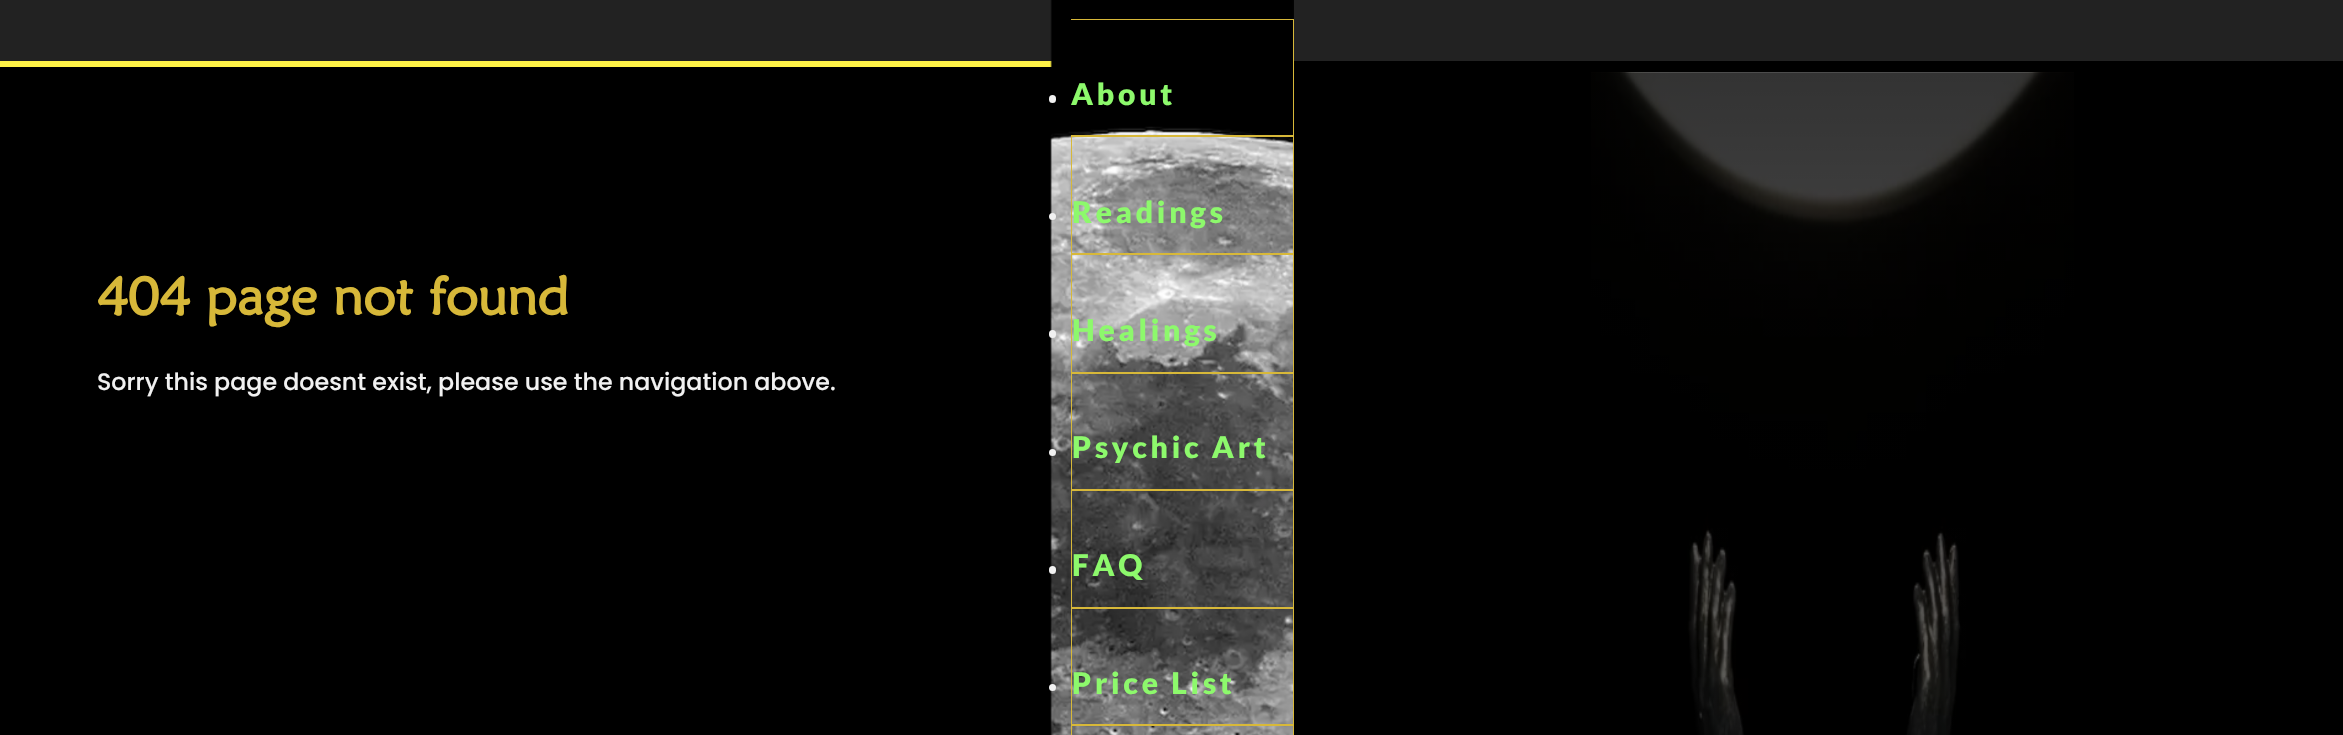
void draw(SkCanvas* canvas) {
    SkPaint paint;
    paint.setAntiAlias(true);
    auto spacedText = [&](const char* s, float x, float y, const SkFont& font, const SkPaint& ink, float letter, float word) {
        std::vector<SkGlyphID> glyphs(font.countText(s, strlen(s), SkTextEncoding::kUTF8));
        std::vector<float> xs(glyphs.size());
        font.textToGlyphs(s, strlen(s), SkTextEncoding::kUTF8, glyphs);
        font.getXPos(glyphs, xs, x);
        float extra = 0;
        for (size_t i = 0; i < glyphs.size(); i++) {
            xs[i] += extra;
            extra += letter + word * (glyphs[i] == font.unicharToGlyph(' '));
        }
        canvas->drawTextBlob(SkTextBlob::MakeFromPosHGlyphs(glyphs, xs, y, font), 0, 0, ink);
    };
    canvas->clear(0xFF222222);
    paint.setColor(0xFF000000);
    canvas->drawRect(SkRect::MakeXYWH(0, 61, 2343, 674), paint);
    canvas->drawImageRect(SkImages::DeferredFromEncodedData(SkData::MakeFromFileName("img1.png")), SkRect::MakeXYWH(1591, 72, 483, 663), SkSamplingOptions());
    paint.setStyle(SkPaint::kStroke_Style);
    paint.setStrokeWidth(6);
    paint.setColor(0xFFFFF347);
    canvas->drawRect(SkRect::MakeXYWH(-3, 64, 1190, 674), paint);
    SkFont font1(fontMgr->matchFamilyStyle("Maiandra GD", SkFontStyle::Bold()), 53.75f);
    font1.setSubpixel(true);
    paint.setStyle(SkPaint::kFill_Style);
    paint.setColor(0xFFD7B839);
    canvas->drawString("404 page not found", 97, 315, font1, paint);
    SkFont font2(fontMgr->matchFamilyStyle("Poppins", SkFontStyle(500, SkFontStyle::kNormal_Width, SkFontStyle::kUpright_Slant)), 23.75f);
    font2.setSubpixel(true);
    paint.setColor(0xFFF1F1F1);
    canvas->drawString("Sorry this page doesnt exist, please use the navigation above.", 97, 390, font2, paint);
    canvas->drawImageRect(SkImages::DeferredFromEncodedData(SkData::MakeFromFileName("img2.png")), SkRect::MakeXYWH(1050, 0, 244, 735), SkSamplingOptions());
    paint.setColor(0xFFD7B839);
    canvas->drawRect(SkRect::MakeXYWH(1071, 19, 223, 1), paint);
    canvas->drawRect(SkRect::MakeXYWH(1293, 19, 1, 117), paint);
    canvas->drawRect(SkRect::MakeXYWH(1071, 135, 223, 1), paint);
    paint.setColor(0xFFF1F1F1);
    canvas->drawRoundRect(SkRect::MakeXYWH(1049, 95, 7, 8), 3.5f, 3.5f, paint);
    SkFont font3(fontMgr->matchFamilyStyle("Lato", SkFontStyle(900, SkFontStyle::kNormal_Width, SkFontStyle::kUpright_Slant)), 30);
    font3.setSubpixel(true);
    paint.setColor(0xFF8DF96C);
    spacedText("About", 1071, 105, font3, paint, 3.75f, 0);
    paint.setStyle(SkPaint::kStroke_Style);
    paint.setStrokeWidth(1);
    paint.setColor(0xFFD7B839);
    canvas->drawRect(SkRect::MakeXYWH(1071.5f, 136.5f, 222, 117), paint);
    paint.setStyle(SkPaint::kFill_Style);
    paint.setColor(0xFFF1F1F1);
    canvas->drawCircle(1052.5f, 216.5f, 3.5f, paint);
    paint.setColor(0xFF8DF96C);
    spacedText("Readings", 1072, 223, font3, paint, 3.75f, 0);
    paint.setStyle(SkPaint::kStroke_Style);
    paint.setColor(0xFFD7B839);
    canvas->drawRect(SkRect::MakeXYWH(1071.5f, 254.5f, 222, 118), paint);
    paint.setStyle(SkPaint::kFill_Style);
    paint.setColor(0xFFF1F1F1);
    canvas->drawRoundRect(SkRect::MakeXYWH(1049, 330, 7, 8), 3.5f, 3.5f, paint);
    paint.setColor(0xFF8DF96C);
    spacedText("Healings", 1072, 341, font3, paint, 3.75f, 0);
    paint.setStyle(SkPaint::kStroke_Style);
    paint.setColor(0xFFD7B839);
    canvas->drawRect(SkRect::MakeXYWH(1071.5f, 373.5f, 222, 116), paint);
    paint.setStyle(SkPaint::kFill_Style);
    paint.setColor(0xFFF1F1F1);
    canvas->drawCircle(1052.5f, 452.5f, 3.5f, paint);
    paint.setColor(0xFF8DF96C);
    spacedText("Psychic Art", 1072, 458, font3, paint, 3.75f, 0);
    paint.setStyle(SkPaint::kStroke_Style);
    paint.setColor(0xFFD7B839);
    canvas->drawRect(SkRect::MakeXYWH(1071.5f, 490.5f, 222, 117), paint);
    paint.setStyle(SkPaint::kFill_Style);
    paint.setColor(0xFFF1F1F1);
    canvas->drawRoundRect(SkRect::MakeXYWH(1049, 566, 7, 8), 3.5f, 3.5f, paint);
    paint.setColor(0xFF8DF96C);
    spacedText("FAQ", 1072, 576, font3, paint, 3.75f, 0);
    paint.setStyle(SkPaint::kStroke_Style);
    paint.setColor(0xFFD7B839);
    canvas->drawRect(SkRect::MakeXYWH(1071.5f, 608.5f, 222, 116), paint);
    paint.setStyle(SkPaint::kFill_Style);
    paint.setColor(0xFFF1F1F1);
    canvas->drawCircle(1052.5f, 687.5f, 3.5f, paint);
    paint.setColor(0xFF8DF96C);
    spacedText("Price List", 1072, 694, font3, paint, 3.75f, 0);
    paint.setStyle(SkPaint::kStroke_Style);
    paint.setColor(0xFFD7B839);
    canvas->drawRect(SkRect::MakeXYWH(1071.5f, 725.5f, 222, 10), paint);
}
